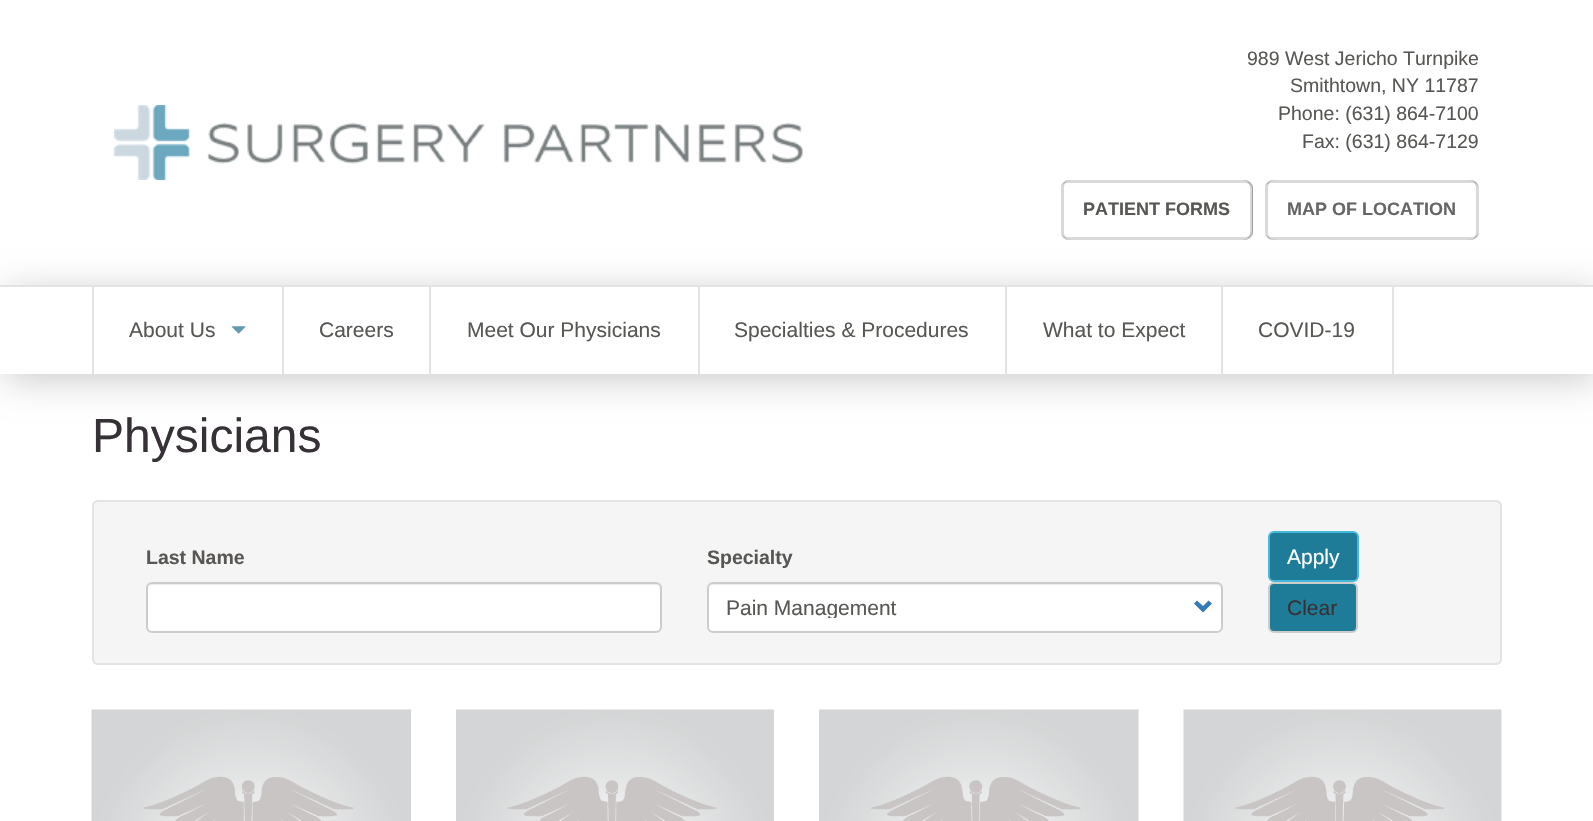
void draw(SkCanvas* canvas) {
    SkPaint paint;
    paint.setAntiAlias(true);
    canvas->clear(0xFFFFFFFF);
    canvas->drawImageRect(SkImages::DeferredFromEncodedData(SkData::MakeFromFileName("img1.png")), SkRect::MakeXYWH(114, 105, 689, 75), SkSamplingOptions());
    SkFont font1(fontMgr->matchFamilyStyle("Liberation Sans", SkFontStyle::Normal()), 19.5f);
    font1.setSubpixel(true);
    paint.setColor(0xFF585754);
    canvas->drawString("989 West Jericho Turnpike", 1247, 65, font1, paint);
    canvas->drawString("Smithtown, NY 11787", 1290, 92, font1, paint);
    canvas->drawString("Phone: (631) 864-7100", 1278, 120, font1, paint);
    canvas->drawString("Fax: (631) 864-7129", 1302, 148, font1, paint);
    paint.setColor(0xFFD9D9D9);
    canvas->drawPath(SkPathBuilder().moveTo(1061, 234).cubicTo(1062, 237, 1065, 240, 1069, 240).lineTo(1245, 240).cubicTo(1249, 240, 1253, 236, 1253, 232).lineTo(1253, 188).cubicTo(1253, 187, 1253, 185, 1252, 184).lineTo(1252, 230).cubicTo(1252, 234, 1249, 237, 1245, 237).lineTo(1068, 237).cubicTo(1065, 237, 1063, 236, 1061, 234).close().detach(), paint);
    paint.setColor(0x26000000);
    canvas->drawPath(SkPathBuilder().moveTo(1068, 183).lineTo(1245, 183).cubicTo(1249, 183, 1252, 186, 1252, 190).lineTo(1252, 236).cubicTo(1253, 235, 1253, 233, 1253, 232).lineTo(1253, 188).cubicTo(1253, 184, 1249, 180, 1245, 180).lineTo(1069, 180).cubicTo(1065, 180, 1062, 183, 1061, 186).cubicTo(1063, 184, 1065, 183, 1068, 183).close().detach(), paint);
    canvas->drawPath(SkPathBuilder().moveTo(1242, 240).cubicTo(1253, 240, 1253, 235, 1253, 225).lineTo(1253, 195).cubicTo(1253, 185, 1253, 180, 1242, 180).cubicTo(1246, 180, 1250, 183, 1250, 188).lineTo(1250, 232).cubicTo(1250, 237, 1246, 240, 1242, 240).close().detach(), paint);
    canvas->drawPath(SkPathBuilder().moveTo(1069, 180).cubicTo(1065, 180, 1061, 184, 1061, 188).lineTo(1061, 232).cubicTo(1061, 236, 1065, 240, 1069, 240).lineTo(1071, 240).cubicTo(1067, 240, 1064, 237, 1064, 232).lineTo(1064, 188).cubicTo(1064, 183, 1067, 180, 1071, 180).close().detach(), paint);
    SkFont font2(fontMgr->matchFamilyStyle("Liberation Sans", SkFontStyle::Bold()), 18);
    font2.setSubpixel(true);
    paint.setColor(0xFF585754);
    canvas->drawString("PATIENT FORMS", 1083, 215, font2, paint);
    paint.setColor(0xFFD9D9D9);
    canvas->drawPath(SkPathBuilder().moveTo(1265, 234).cubicTo(1266, 237, 1269, 240, 1273, 240).lineTo(1471, 240).cubicTo(1475, 240, 1479, 236, 1479, 232).lineTo(1479, 230).cubicTo(1479, 234, 1476, 237, 1472, 237).lineTo(1272, 237).cubicTo(1269, 237, 1267, 236, 1265, 234).close().detach(), paint);
    canvas->drawPath(SkPathBuilder().moveTo(1272, 183).lineTo(1472, 183).cubicTo(1476, 183, 1479, 186, 1479, 190).lineTo(1479, 188).cubicTo(1479, 184, 1475, 180, 1471, 180).lineTo(1273, 180).cubicTo(1269, 180, 1266, 183, 1265, 186).cubicTo(1267, 184, 1269, 183, 1272, 183).close().detach(), paint);
    paint.setColor(0x26000000);
    canvas->drawPath(SkPathBuilder().moveTo(1468, 240).cubicTo(1479, 240, 1479, 235, 1479, 225).lineTo(1479, 195).cubicTo(1479, 185, 1479, 180, 1468, 180).cubicTo(1473, 180, 1476, 183, 1476, 188).lineTo(1476, 232).cubicTo(1476, 237, 1473, 240, 1468, 240).close().detach(), paint);
    canvas->drawPath(SkPathBuilder().moveTo(1273, 180).cubicTo(1269, 180, 1265, 184, 1265, 188).lineTo(1265, 232).cubicTo(1265, 236, 1269, 240, 1273, 240).lineTo(1275, 240).cubicTo(1271, 240, 1268, 237, 1268, 232).lineTo(1268, 188).cubicTo(1268, 183, 1271, 180, 1275, 180).close().detach(), paint);
    paint.setColor(0xFF666666);
    canvas->drawString("MAP OF LOCATION", 1287, 215, font2, paint);
    paint.setColor(0x33000000);
    paint.setMaskFilter(SkMaskFilter::MakeBlur(kNormal_SkBlurStyle, 18));
    canvas->drawRect(SkRect::MakeXYWH(5, 291, 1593, 89), paint);
    paint.setMaskFilter(nullptr);
    paint.setColor(0xFFFFFFFF);
    canvas->drawRect(SkRect::MakeXYWH(0, 287, 1593, 87), paint);
    paint.setColor(0xFFE4E3E3);
    canvas->drawRect(SkRect::MakeXYWH(0, 285, 1593, 2), paint);
    canvas->drawRect(SkRect::MakeXYWH(92, 287, 2, 87), paint);
    canvas->drawRect(SkRect::MakeXYWH(282, 287, 2, 87), paint);
    SkFont font3(fontMgr->matchFamilyStyle("Liberation Sans", SkFontStyle::Normal()), 21);
    font3.setSubpixel(true);
    paint.setColor(0xFF585754);
    canvas->drawString("About Us", 129, 337, font3, paint);
    canvas->drawImageRect(SkImages::DeferredFromEncodedData(SkData::MakeFromFileName("img2.png")), SkRect::MakeXYWH(231, 326, 15, 8), SkSamplingOptions());
    paint.setColor(0xFFE4E3E3);
    canvas->drawRect(SkRect::MakeXYWH(429, 287, 2, 87), paint);
    paint.setColor(0xFF585754);
    canvas->drawString("Careers", 319, 337, font3, paint);
    paint.setColor(0xFFE4E3E3);
    canvas->drawRect(SkRect::MakeXYWH(698, 287, 2, 87), paint);
    paint.setColor(0xFF585754);
    canvas->drawString("Meet Our Physicians", 467, 337, font3, paint);
    paint.setColor(0xFFE4E3E3);
    canvas->drawRect(SkRect::MakeXYWH(1005, 287, 2, 87), paint);
    paint.setColor(0xFF585754);
    canvas->drawString("Specialties & Procedures", 734, 337, font3, paint);
    paint.setColor(0xFFE4E3E3);
    canvas->drawRect(SkRect::MakeXYWH(1221, 287, 2, 87), paint);
    paint.setColor(0xFF585754);
    canvas->drawString("What to Expect", 1043, 337, font3, paint);
    paint.setColor(0xFFE4E3E3);
    canvas->drawRect(SkRect::MakeXYWH(1392, 287, 2, 87), paint);
    paint.setColor(0xFF585754);
    canvas->drawString("COVID-19", 1258, 337, font3, paint);
    SkFont font4(fontMgr->matchFamilyStyle("Liberation Sans", SkFontStyle::Normal()), 48);
    font4.setSubpixel(true);
    paint.setColor(0xFF363136);
    canvas->drawString("Physicians", 92, 452, font4, paint);
    paint.setColor(0xFFF5F5F5);
    canvas->drawRoundRect(SkRect::MakeXYWH(92, 500, 1410, 165), 6, 6, paint);
    paint.setColor(0xFFE9E9E9);
    canvas->drawPath(SkPathBuilder().moveTo(98, 502).lineTo(1496, 502).cubicTo(1498, 502, 1500, 505, 1500, 507).cubicTo(1500, 504, 1498, 501, 1495, 501).lineTo(98, 501).cubicTo(95, 501, 93, 504, 93, 507).cubicTo(93, 505, 95, 502, 98, 502).close().detach(), paint);
    paint.setStyle(SkPaint::kStroke_Style);
    paint.setStrokeWidth(2);
    paint.setColor(0xFFE3E3E3);
    canvas->drawRoundRect(SkRect::MakeXYWH(93, 501, 1408, 163), 5, 5, paint);
    SkFont font5(fontMgr->matchFamilyStyle("Liberation Sans", SkFontStyle::Bold()), 19.5f);
    font5.setSubpixel(true);
    paint.setStyle(SkPaint::kFill_Style);
    paint.setColor(0xFF585754);
    canvas->drawString("Last Name", 146, 564, font5, paint);
    paint.setColor(0xFFFFFFFF);
    canvas->drawRoundRect(SkRect::MakeXYWH(146, 582, 516, 51), 6, 6, paint);
    paint.setColor(0xFFECECEC);
    canvas->drawPath(SkPathBuilder().moveTo(152, 585).lineTo(656, 585).cubicTo(658, 585, 660, 587, 660, 590).lineTo(660, 589).cubicTo(660, 586, 658, 584, 655, 584).lineTo(152, 584).cubicTo(149, 584, 147, 586, 147, 589).lineTo(147, 590).cubicTo(147, 587, 149, 585, 152, 585).close().detach(), paint);
    paint.setStyle(SkPaint::kStroke_Style);
    paint.setColor(0xFFCCCCCC);
    canvas->drawRoundRect(SkRect::MakeXYWH(147, 583, 514, 49), 5, 5, paint);
    paint.setStyle(SkPaint::kFill_Style);
    paint.setColor(0xFF585754);
    canvas->drawString("Specialty", 707, 564, font5, paint);
    paint.setColor(0xFFFFFFFF);
    canvas->drawRoundRect(SkRect::MakeXYWH(707, 582, 516, 51), 6, 6, paint);
    paint.setColor(0xFFECECEC);
    canvas->drawPath(SkPathBuilder().moveTo(712, 585).lineTo(1216, 585).cubicTo(1219, 585, 1221, 587, 1221, 590).lineTo(1221, 589).cubicTo(1221, 586, 1219, 584, 1216, 584).lineTo(713, 584).cubicTo(710, 584, 708, 586, 708, 589).lineTo(708, 590).cubicTo(708, 587, 710, 585, 712, 585).close().detach(), paint);
    paint.setStyle(SkPaint::kStroke_Style);
    paint.setColor(0xFFCCCCCC);
    canvas->drawRoundRect(SkRect::MakeXYWH(708, 583, 514, 49), 5, 5, paint);
    canvas->save();
    canvas->clipRect(SkRect::MakeXYWH(726, 597, 453, 21));
    paint.setStyle(SkPaint::kFill_Style);
    paint.setColor(0xFF585754);
    canvas->drawString("Pain Management", 726, 615, font3, paint);
    canvas->restore();
    paint.setColor(0xFF337AB7);
    canvas->drawPath(SkPathBuilder().moveTo(1212, 603.5f).lineTo(1203, 612.5f).lineTo(1194, 603.5f).lineTo(1197, 600.5f).lineTo(1203, 606).lineTo(1208.5f, 600.5f).close().detach(), paint);
    paint.setColor(0xFF1F7C98);
    canvas->drawRoundRect(SkRect::MakeXYWH(1269, 532, 89, 49), 5, 5, paint);
    paint.setStyle(SkPaint::kStroke_Style);
    paint.setColor(0xFF46B8DA);
    canvas->drawRoundRect(SkRect::MakeXYWH(1269, 532, 89, 49), 5, 5, paint);
    paint.setStyle(SkPaint::kFill_Style);
    paint.setColor(0xFFFFFFFF);
    canvas->drawString("Apply", 1287, 564, font3, paint);
    paint.setColor(0xFF1F7C98);
    canvas->drawRoundRect(SkRect::MakeXYWH(1269, 583, 88, 49), 5, 5, paint);
    paint.setStyle(SkPaint::kStroke_Style);
    paint.setColor(0xFFCCCCCC);
    canvas->drawRoundRect(SkRect::MakeXYWH(1269, 583, 88, 49), 5, 5, paint);
    paint.setStyle(SkPaint::kFill_Style);
    paint.setColor(0xFF363136);
    canvas->drawString("Clear", 1287, 615, font3, paint);
    canvas->drawImageRect(SkImages::DeferredFromEncodedData(SkData::MakeFromFileName("img3.png")), SkRect::MakeXYWH(91, 709, 320, 112), SkSamplingOptions());
    canvas->drawImageRect(SkImages::DeferredFromEncodedData(SkData::MakeFromFileName("img4.png")), SkRect::MakeXYWH(456, 709, 318, 112), SkSamplingOptions());
    canvas->drawImageRect(SkImages::DeferredFromEncodedData(SkData::MakeFromFileName("img5.png")), SkRect::MakeXYWH(819, 709, 320, 112), SkSamplingOptions());
    canvas->drawImageRect(SkImages::DeferredFromEncodedData(SkData::MakeFromFileName("img6.png")), SkRect::MakeXYWH(1183, 709, 319, 112), SkSamplingOptions());
}
